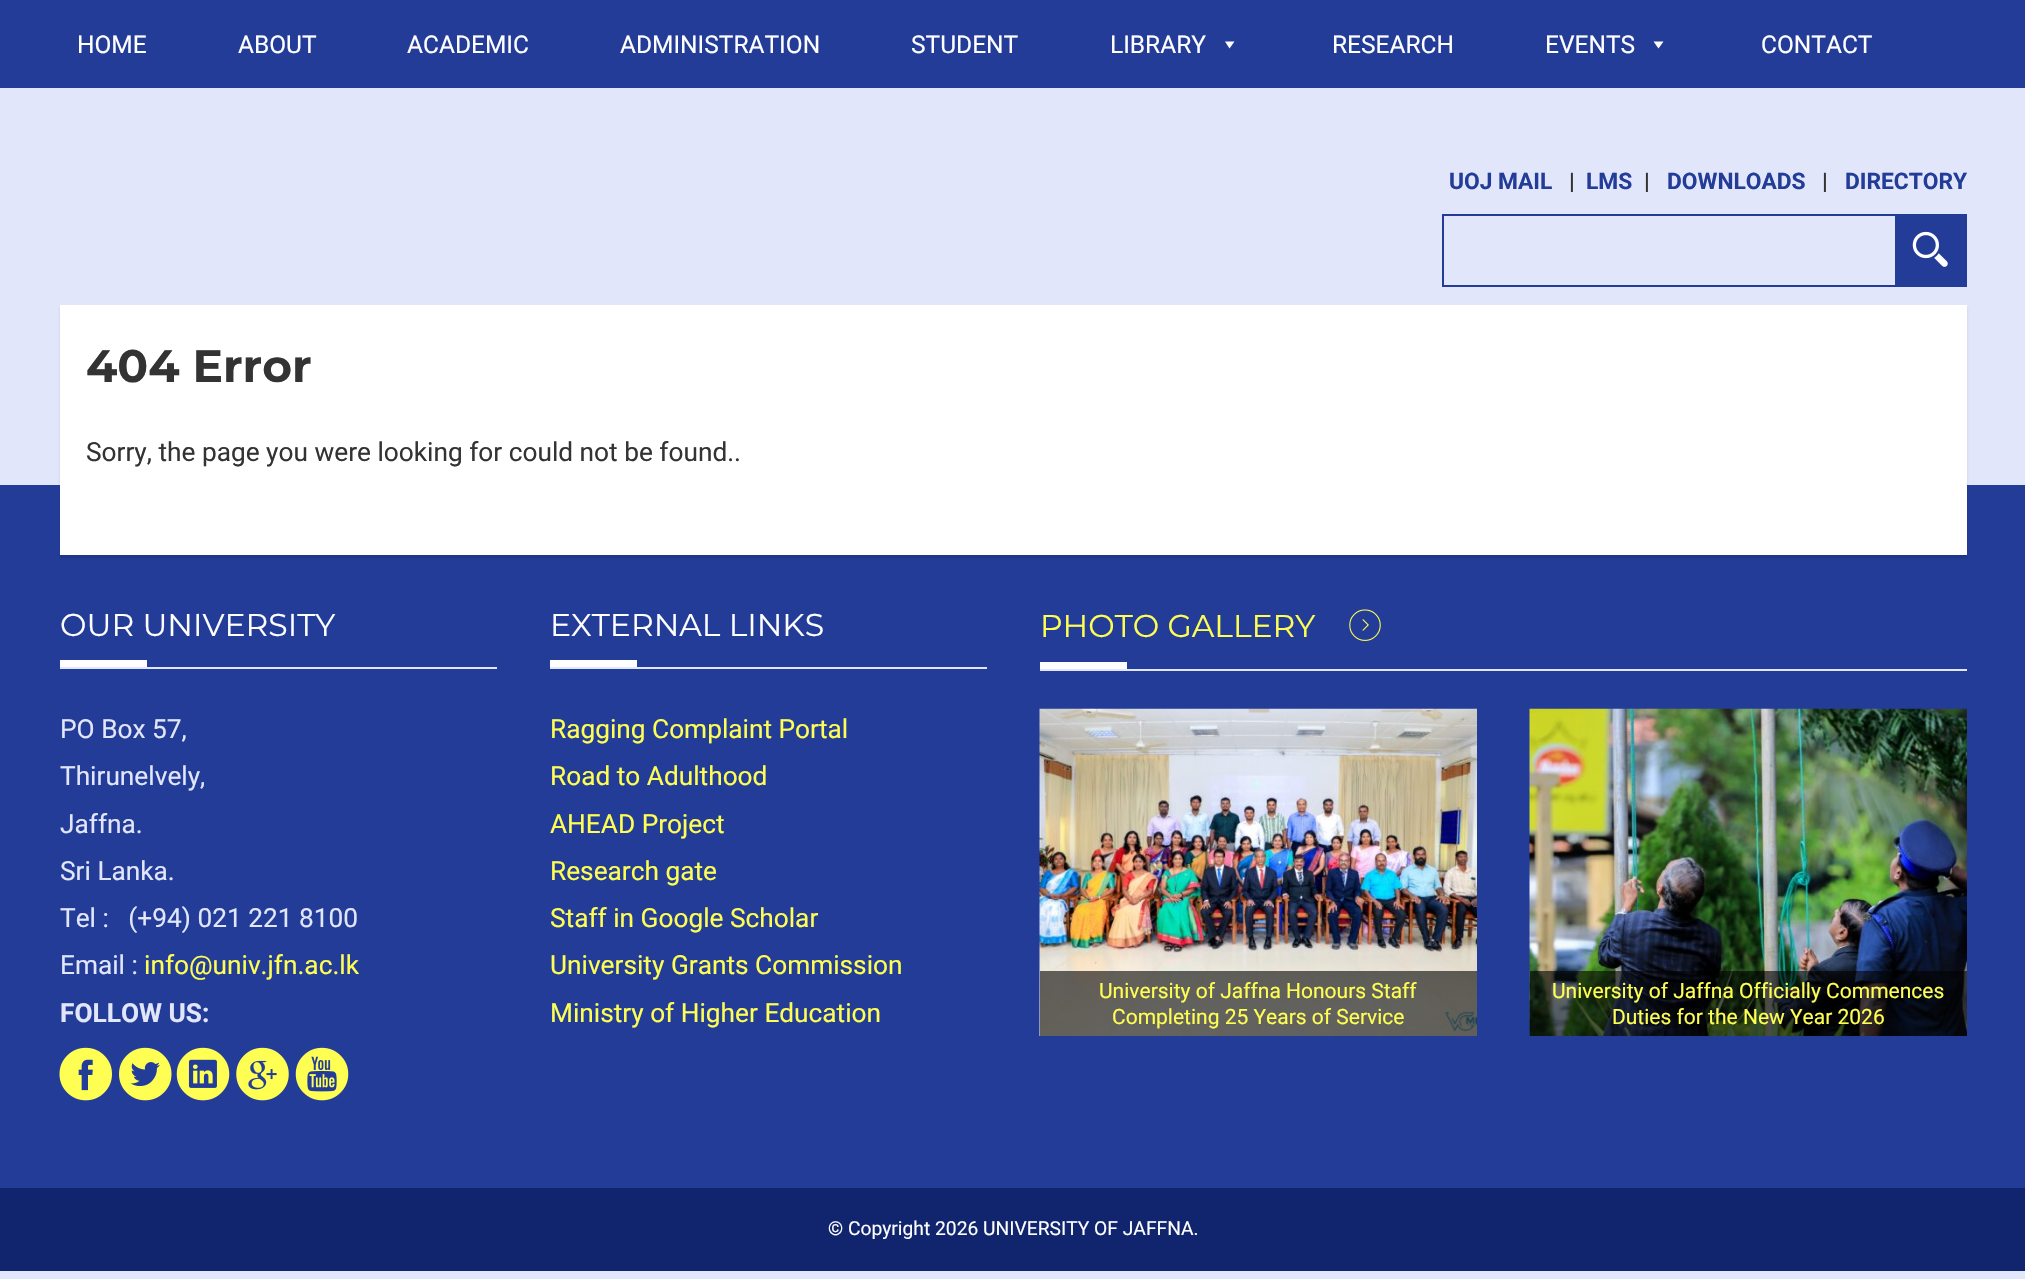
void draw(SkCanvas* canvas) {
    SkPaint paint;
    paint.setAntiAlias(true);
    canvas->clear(0xFFE1E6FA);
    paint.setColor(0xFF233C98);
    canvas->drawRect(SkRect::MakeXYWH(0, 0, 2025, 88), paint);
    SkFont font1(fontMgr->matchFamilyStyle("Roboto", SkFontStyle::Normal()), 24.5f);
    font1.setSubpixel(true);
    paint.setColor(0xFFFFFFFF);
    canvas->drawString("HOME", 77, 53, font1, paint);
    canvas->drawString("ABOUT", 238, 53, font1, paint);
    canvas->drawString("ACADEMIC", 407, 53, font1, paint);
    canvas->drawString("ADMINISTRATION", 620, 53, font1, paint);
    canvas->drawString("STUDENT", 911, 53, font1, paint);
    canvas->drawString("LIBRARY", 1110, 53, font1, paint);
    canvas->drawPath(SkPathBuilder().moveTo(1234.5f, 41.5f).lineTo(1229.5f, 48.5f).lineTo(1225, 41.5f).close().detach(), paint);
    canvas->drawString("RESEARCH", 1332, 53, font1, paint);
    canvas->drawString("EVENTS", 1545, 53, font1, paint);
    canvas->drawPath(SkPathBuilder().moveTo(1663.5f, 41.5f).lineTo(1658.5f, 48.5f).lineTo(1653.5f, 41.5f).close().detach(), paint);
    canvas->drawString("CONTACT", 1761, 53, font1, paint);
    SkFont font2(fontMgr->matchFamilyStyle("Roboto", SkFontStyle::Bold()), 22.75f);
    font2.setSubpixel(true);
    paint.setColor(0xFF233C98);
    canvas->drawString("UOJ MAIL", 1449, 189, font2, paint);
    paint.setColor(0xFF333333);
    canvas->drawString("|", 1569, 189, font2, paint);
    paint.setColor(0xFF233C98);
    canvas->drawString("LMS", 1586, 189, font2, paint);
    paint.setColor(0xFF333333);
    canvas->drawString("|", 1644, 189, font2, paint);
    paint.setColor(0xFF233C98);
    canvas->drawString("DOWNLOADS", 1667, 189, font2, paint);
    paint.setColor(0xFF333333);
    canvas->drawString("|", 1822, 189, font2, paint);
    paint.setColor(0xFF233C98);
    canvas->drawString("DIRECTORY", 1845, 189, font2, paint);
    paint.setStyle(SkPaint::kStroke_Style);
    paint.setStrokeWidth(2);
    canvas->drawRect(SkRect::MakeXYWH(1443, 215, 523, 71), paint);
    paint.setStyle(SkPaint::kFill_Style);
    canvas->drawRect(SkRect::MakeXYWH(1895, 216, 70, 69), paint);
    canvas->drawImageRect(SkImages::DeferredFromEncodedData(SkData::MakeFromFileName("img1.png")), SkRect::MakeXYWH(1912, 231, 36, 36), SkSamplingOptions());
    canvas->drawRect(SkRect::MakeXYWH(0, 485, 2025, 703), paint);
    paint.setColor(0x1F000001);
    paint.setMaskFilter(SkMaskFilter::MakeBlur(kNormal_SkBlurStyle, 1));
    canvas->drawRect(SkRect::MakeXYWH(60, 308, 1907, 250), paint);
    paint.setMaskFilter(nullptr);
    paint.setColor(0xFFFFFFFF);
    canvas->drawRect(SkRect::MakeXYWH(60, 305, 1907, 250), paint);
    SkFont font3(fontMgr->matchFamilyStyle("Montserrat", SkFontStyle::Bold()), 45.5f);
    font3.setSubpixel(true);
    paint.setColor(0xFF333333);
    canvas->drawString("404 Error", 86, 382, font3, paint);
    SkFont font4(fontMgr->matchFamilyStyle("Roboto", SkFontStyle::Normal()), 26.25f);
    font4.setSubpixel(true);
    canvas->drawString("Sorry, the page you were looking for could not be found..", 86, 461, font4, paint);
    paint.setColor(0xFFE1E6FA);
    canvas->drawRect(SkRect::MakeXYWH(60, 667, 437, 2), paint);
    SkFont font5(fontMgr->matchFamilyStyle("Montserrat", SkFontStyle::Normal()), 31.5f);
    font5.setSubpixel(true);
    paint.setColor(0xFFFFFFFF);
    canvas->drawString("OUR UNIVERSITY", 60, 636, font5, paint);
    canvas->drawRect(SkRect::MakeXYWH(60, 660, 87, 7), paint);
    paint.setColor(0xFFE1E6FA);
    canvas->drawString("PO Box 57,", 60, 738, font4, paint);
    canvas->drawString("Thirunelvely,", 60, 785, font4, paint);
    canvas->drawString("Jaffna.", 60, 833, font4, paint);
    canvas->drawString("Sri Lanka.", 60, 880, font4, paint);
    canvas->drawString("Tel :   (+94) 021 221 8100", 60, 927, font4, paint);
    canvas->drawString("Email :", 60, 974, font4, paint);
    paint.setColor(0xFFFFFF53);
    canvas->drawString("info@univ.jfn.ac.lk", 144, 974, font4, paint);
    SkFont font6(fontMgr->matchFamilyStyle("Roboto", SkFontStyle::Bold()), 26.25f);
    font6.setSubpixel(true);
    paint.setColor(0xFFE1E6FA);
    canvas->drawString("FOLLOW US:", 60, 1022, font6, paint);
    canvas->drawImageRect(SkImages::DeferredFromEncodedData(SkData::MakeFromFileName("img2.png")), SkRect::MakeXYWH(59, 1047, 53, 54), SkSamplingOptions());
    canvas->drawImageRect(SkImages::DeferredFromEncodedData(SkData::MakeFromFileName("img3.png")), SkRect::MakeXYWH(119, 1047, 53, 54), SkSamplingOptions());
    canvas->drawImageRect(SkImages::DeferredFromEncodedData(SkData::MakeFromFileName("img4.png")), SkRect::MakeXYWH(176, 1047, 54, 54), SkSamplingOptions());
    canvas->drawImageRect(SkImages::DeferredFromEncodedData(SkData::MakeFromFileName("img5.png")), SkRect::MakeXYWH(236, 1047, 53, 54), SkSamplingOptions());
    canvas->drawImageRect(SkImages::DeferredFromEncodedData(SkData::MakeFromFileName("img6.png")), SkRect::MakeXYWH(295, 1047, 54, 54), SkSamplingOptions());
    canvas->drawRect(SkRect::MakeXYWH(550, 667, 437, 2), paint);
    paint.setColor(0xFFFFFFFF);
    canvas->drawString("EXTERNAL LINKS", 550, 636, font5, paint);
    canvas->drawRect(SkRect::MakeXYWH(550, 660, 87, 7), paint);
    paint.setColor(0xFFFFFF53);
    canvas->drawString("Ragging Complaint Portal", 550, 738, font4, paint);
    canvas->drawString("Road to Adulthood", 550, 785, font4, paint);
    canvas->drawString("AHEAD Project", 550, 833, font4, paint);
    canvas->drawString("Research gate", 550, 880, font4, paint);
    canvas->drawString("Staff in Google Scholar", 550, 927, font4, paint);
    canvas->drawString("University Grants Commission", 550, 974, font4, paint);
    canvas->drawString("Ministry of Higher Education", 550, 1022, font4, paint);
    paint.setColor(0xFFE1E6FA);
    canvas->drawRect(SkRect::MakeXYWH(1040, 669, 927, 2), paint);
    paint.setColor(0xFFFFFF53);
    canvas->drawString("PHOTO GALLERY", 1040, 637, font5, paint);
    canvas->drawImageRect(SkImages::DeferredFromEncodedData(SkData::MakeFromFileName("img7.png")), SkRect::MakeXYWH(1349, 609, 32, 32), SkSamplingOptions());
    paint.setColor(0xFFFFFFFF);
    canvas->drawRect(SkRect::MakeXYWH(1040, 662, 87, 7), paint);
    canvas->drawImageRect(SkImages::DeferredFromEncodedData(SkData::MakeFromFileName("img8.png")), SkRect::MakeXYWH(1039, 708, 438, 328), SkSamplingOptions());
    paint.setColor(0x99000000);
    canvas->drawRect(SkRect::MakeXYWH(1040, 971, 437, 65), paint);
    SkFont font7(fontMgr->matchFamilyStyle("Roboto", SkFontStyle::Normal()), 21);
    font7.setSubpixel(true);
    paint.setColor(0xFFFFFF53);
    canvas->drawString("University of Jaffna Honours Staff", 1099, 998, font7, paint);
    canvas->drawString("Completing 25 Years of Service", 1112, 1024, font7, paint);
    canvas->drawImageRect(SkImages::DeferredFromEncodedData(SkData::MakeFromFileName("img9.png")), SkRect::MakeXYWH(1529, 708, 438, 328), SkSamplingOptions());
    paint.setColor(0x99000000);
    canvas->drawRect(SkRect::MakeXYWH(1530, 971, 437, 65), paint);
    paint.setColor(0xFFFFFF53);
    canvas->drawString("University of Jaffna Officially Commences", 1552, 998, font7, paint);
    canvas->drawString("Duties for the New Year 2026", 1612, 1024, font7, paint);
    paint.setColor(0xFF11256F);
    canvas->drawRect(SkRect::MakeXYWH(0, 1188, 2025, 83), paint);
    SkFont font8(fontMgr->matchFamilyStyle("Roboto", SkFontStyle::Normal()), 19.25f);
    font8.setSubpixel(true);
    paint.setColor(0xFFFFFFFF);
    canvas->drawString("© Copyright 2026 UNIVERSITY OF JAFFNA.", 828, 1235, font8, paint);
}
